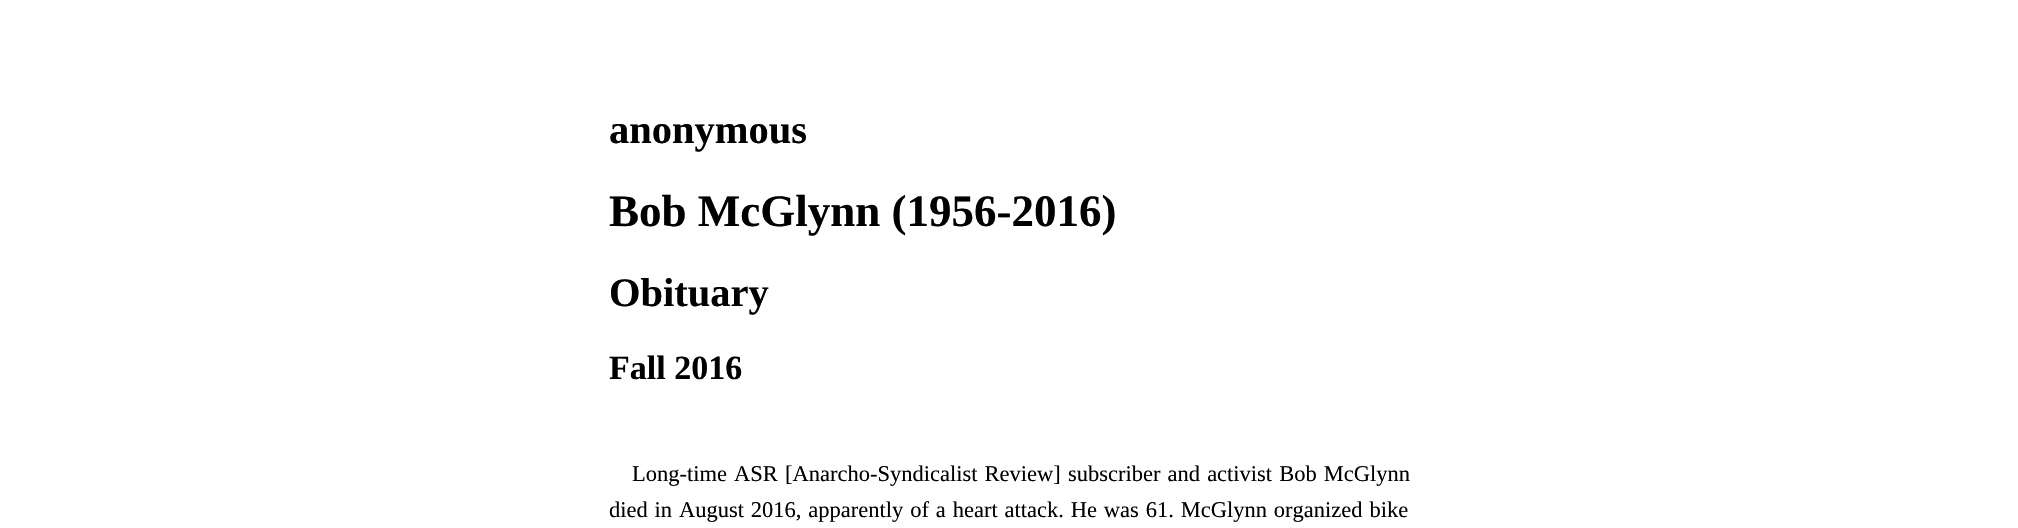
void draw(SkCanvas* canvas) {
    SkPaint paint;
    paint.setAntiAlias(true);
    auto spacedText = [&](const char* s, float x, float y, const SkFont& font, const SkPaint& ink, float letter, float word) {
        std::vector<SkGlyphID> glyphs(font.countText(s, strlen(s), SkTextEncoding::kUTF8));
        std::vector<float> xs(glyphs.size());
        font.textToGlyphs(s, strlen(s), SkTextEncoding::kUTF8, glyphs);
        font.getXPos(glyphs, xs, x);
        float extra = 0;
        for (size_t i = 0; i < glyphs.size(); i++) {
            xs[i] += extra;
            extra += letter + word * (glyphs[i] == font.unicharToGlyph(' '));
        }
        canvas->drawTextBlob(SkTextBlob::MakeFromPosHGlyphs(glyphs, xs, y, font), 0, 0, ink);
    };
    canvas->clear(0xFFFFFFFF);
    SkFont font1(fontMgr->matchFamilyStyle("Liberation Serif", SkFontStyle::Bold()), 40.5f);
    font1.setSubpixel(true);
    paint.setColor(0xFF000000);
    canvas->drawString("anonymous", 609, 143, font1, paint);
    SkFont font2(fontMgr->matchFamilyStyle("Liberation Serif", SkFontStyle::Bold()), 45);
    font2.setSubpixel(true);
    canvas->drawString("Bob McGlynn (1956-2016)", 609, 226, font2, paint);
    canvas->drawString("Obituary", 609, 306, font1, paint);
    SkFont font3(fontMgr->matchFamilyStyle("Liberation Serif", SkFontStyle::Bold()), 34);
    font3.setSubpixel(true);
    canvas->drawString("Fall 2016", 609, 379, font3, paint);
    SkFont font4(fontMgr->matchFamilyStyle("Liberation Serif", SkFontStyle::Normal()), 22.5f);
    font4.setSubpixel(true);
    spacedText("Long-time ASR [Anarcho-Syndicalist Review] subscriber and activist Bob McGlynn", 632, 481, font4, paint, 0, 1.5f);
    spacedText("died in August 2016, apparently of a heart attack. He was 61. McGlynn organized bike", 609, 517, font4, paint, 0, 1.25f);
}
